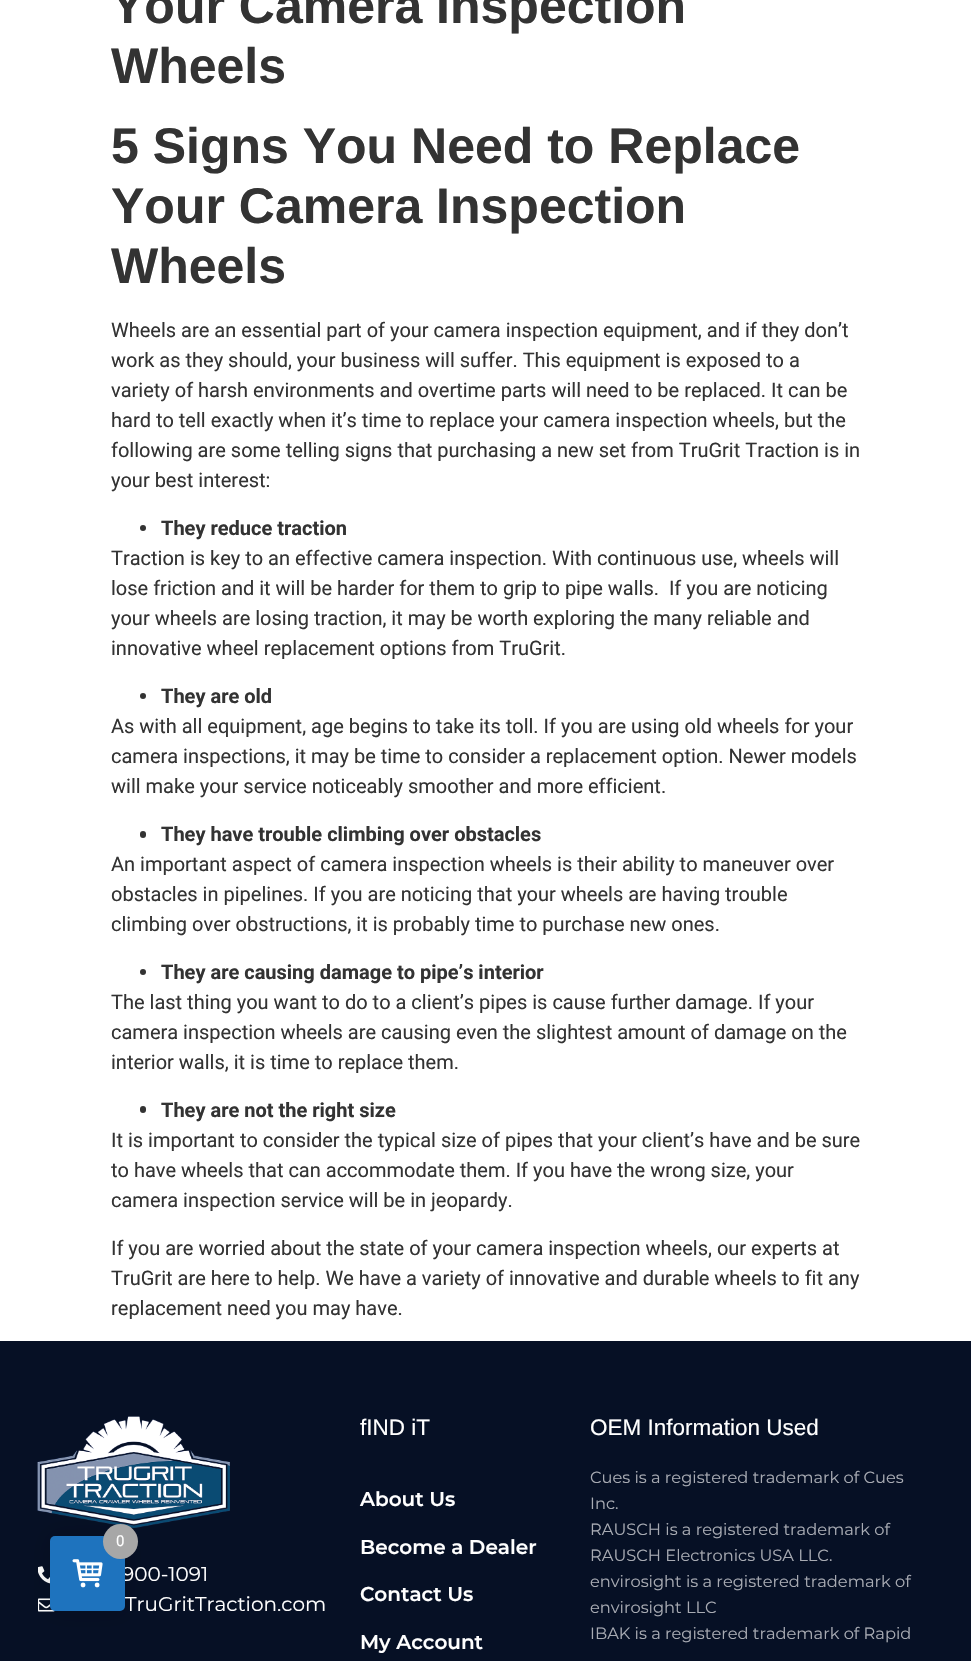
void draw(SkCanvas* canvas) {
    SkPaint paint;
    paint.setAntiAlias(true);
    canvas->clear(0xFFFFFFFF);
    SkFont font1(fontMgr->matchFamilyStyle("Liberation Sans", SkFontStyle::Bold()), 50);
    font1.setSubpixel(true);
    paint.setColor(0xFF333333);
    canvas->drawString("Your Camera Inspection", 111, 23, font1, paint);
    canvas->drawString("Wheels", 111, 83, font1, paint);
    canvas->drawString("5 Signs You Need to Replace", 111, 163, font1, paint);
    canvas->drawString("Your Camera Inspection", 111, 223, font1, paint);
    canvas->drawString("Wheels", 111, 283, font1, paint);
    SkFont font2(fontMgr->matchFamilyStyle("Roboto", SkFontStyle::Normal()), 20);
    font2.setSubpixel(true);
    canvas->drawString("Wheels are an essential part of your camera inspection equipment, and if they don’t", 111, 337, font2, paint);
    canvas->drawString("work as they should, your business will suffer. This equipment is exposed to a", 111, 367, font2, paint);
    canvas->drawString("variety of harsh environments and overtime parts will need to be replaced. It can be", 111, 397, font2, paint);
    canvas->drawString("hard to tell exactly when it’s time to replace your camera inspection wheels, but the", 111, 427, font2, paint);
    canvas->drawString("following are some telling signs that purchasing a new set from TruGrit Traction is in", 111, 457, font2, paint);
    canvas->drawString("your best interest:", 111, 487, font2, paint);
    canvas->drawCircle(143, 528, 3, paint);
    SkFont font3(fontMgr->matchFamilyStyle("Roboto", SkFontStyle::Bold()), 20);
    font3.setSubpixel(true);
    canvas->drawString("They reduce traction", 161, 535, font3, paint);
    canvas->drawString("Traction is key to an effective camera inspection. With continuous use, wheels will", 111, 565, font2, paint);
    canvas->drawString("lose friction and it will be harder for them to grip to pipe walls.  If you are noticing", 111, 595, font2, paint);
    canvas->drawString("your wheels are losing traction, it may be worth exploring the many reliable and", 111, 625, font2, paint);
    canvas->drawString("innovative wheel replacement options from TruGrit.", 111, 655, font2, paint);
    canvas->drawCircle(143, 696, 3, paint);
    canvas->drawString("They are old", 161, 703, font3, paint);
    canvas->drawString("As with all equipment, age begins to take its toll. If you are using old wheels for your", 111, 733, font2, paint);
    canvas->drawString("camera inspections, it may be time to consider a replacement option. Newer models", 111, 763, font2, paint);
    canvas->drawString("will make your service noticeably smoother and more efficient.", 111, 793, font2, paint);
    canvas->drawRoundRect(SkRect::MakeXYWH(140, 831, 6, 7), 3, 3, paint);
    canvas->drawString("They have trouble climbing over obstacles", 161, 841, font3, paint);
    canvas->drawString("An important aspect of camera inspection wheels is their ability to maneuver over", 111, 871, font2, paint);
    canvas->drawString("obstacles in pipelines. If you are noticing that your wheels are having trouble", 111, 901, font2, paint);
    canvas->drawString("climbing over obstructions, it is probably time to purchase new ones.", 111, 931, font2, paint);
    canvas->drawCircle(143, 972, 3, paint);
    canvas->drawString("They are causing damage to pipe’s interior", 161, 979, font3, paint);
    canvas->drawString("The last thing you want to do to a client’s pipes is cause further damage. If your", 111, 1009, font2, paint);
    canvas->drawString("camera inspection wheels are causing even the slightest amount of damage on the", 111, 1039, font2, paint);
    canvas->drawString("interior walls, it is time to replace them.", 111, 1069, font2, paint);
    canvas->drawRoundRect(SkRect::MakeXYWH(140, 1106, 6, 7), 3, 3, paint);
    canvas->drawString("They are not the right size", 161, 1117, font3, paint);
    canvas->drawString("It is important to consider the typical size of pipes that your client’s have and be sure", 111, 1147, font2, paint);
    canvas->drawString("to have wheels that can accommodate them. If you have the wrong size, your", 111, 1177, font2, paint);
    canvas->drawString("camera inspection service will be in jeopardy.", 111, 1207, font2, paint);
    canvas->drawString("If you are worried about the state of your camera inspection wheels, our experts at", 111, 1255, font2, paint);
    canvas->drawString("TruGrit are here to help. We have a variety of innovative and durable wheels to fit any", 111, 1285, font2, paint);
    canvas->drawString("replacement need you may have.", 111, 1315, font2, paint);
    paint.setColor(0xFF061025);
    canvas->drawRect(SkRect::MakeXYWH(0, 1341, 971, 320), paint);
    canvas->drawImageRect(SkImages::DeferredFromEncodedData(SkData::MakeFromFileName("img2.png")), SkRect::MakeXYWH(37, 1416, 193, 112), SkSamplingOptions());
    canvas->drawImageRect(SkImages::DeferredFromEncodedData(SkData::MakeFromFileName("img3.png")), SkRect::MakeXYWH(38, 1566, 12, 18), SkSamplingOptions());
    canvas->drawImageRect(SkImages::DeferredFromEncodedData(SkData::MakeFromFileName("img4.png")), SkRect::MakeXYWH(38, 1598, 17, 14), SkSamplingOptions());
    paint.setColor(0x26000000);
    paint.setMaskFilter(SkMaskFilter::MakeBlur(kNormal_SkBlurStyle, 12.5f));
    canvas->drawRoundRect(SkRect::MakeXYWH(50, 1536, 75, 75), 5, 5, paint);
    paint.setMaskFilter(nullptr);
    SkFont font4(fontMgr->matchFamilyStyle("Montserrat", SkFontStyle::Normal()), 20);
    font4.setSubpixel(true);
    paint.setColor(0xFFFFFFFF);
    canvas->drawString("900-1091", 122, 1581, font4, paint);
    paint.setColor(0xFF1E73BE);
    canvas->drawRoundRect(SkRect::MakeXYWH(50, 1536, 75, 75), 5, 5, paint);
    paint.setColor(0xFFA7A7A7);
    canvas->drawCircle(120.5f, 1541.5f, 17.5f, paint);
    SkFont font5(fontMgr->matchFamilyStyle("Roboto", SkFontStyle::Normal()), 15);
    font5.setSubpixel(true);
    paint.setColor(0xFFFFFFFF);
    canvas->drawString("0", 116, 1546, font5, paint);
    canvas->drawImageRect(SkImages::DeferredFromEncodedData(SkData::MakeFromFileName("img1.png")), SkRect::MakeXYWH(72, 1559, 31, 29), SkSamplingOptions());
    canvas->drawString("TruGritTraction.com", 125, 1611, font4, paint);
    SkFont font6(fontMgr->matchFamilyStyle("Liberation Sans", SkFontStyle::Normal()), 22.5f);
    font6.setSubpixel(true);
    canvas->drawString("fIND iT", 360, 1435, font6, paint);
    SkFont font7(fontMgr->matchFamilyStyle("Montserrat", SkFontStyle(600, SkFontStyle::kNormal_Width, SkFontStyle::kUpright_Slant)), 20);
    font7.setSubpixel(true);
    canvas->drawString("About Us", 360, 1506, font7, paint);
    canvas->drawString("Become a Dealer", 360, 1554, font7, paint);
    canvas->drawString("Contact Us", 360, 1601, font7, paint);
    canvas->drawString("My Account", 360, 1649, font7, paint);
    canvas->drawString("OEM Information Used", 590, 1435, font6, paint);
    SkFont font8(fontMgr->matchFamilyStyle("Montserrat", SkFontStyle::Normal()), 16.25f);
    font8.setSubpixel(true);
    paint.setColor(0xFFA8ABB3);
    canvas->drawString("Cues is a registered trademark of Cues", 590, 1483, font8, paint);
    canvas->drawString("Inc.", 590, 1509, font8, paint);
    canvas->drawString("RAUSCH is a registered trademark of", 590, 1535, font8, paint);
    canvas->drawString("RAUSCH Electronics USA LLC.", 590, 1561, font8, paint);
    canvas->drawString("envirosight is a registered trademark of", 590, 1587, font8, paint);
    canvas->drawString("envirosight LLC", 590, 1613, font8, paint);
    canvas->drawString("IBAK is a registered trademark of Rapid", 590, 1639, font8, paint);
}
